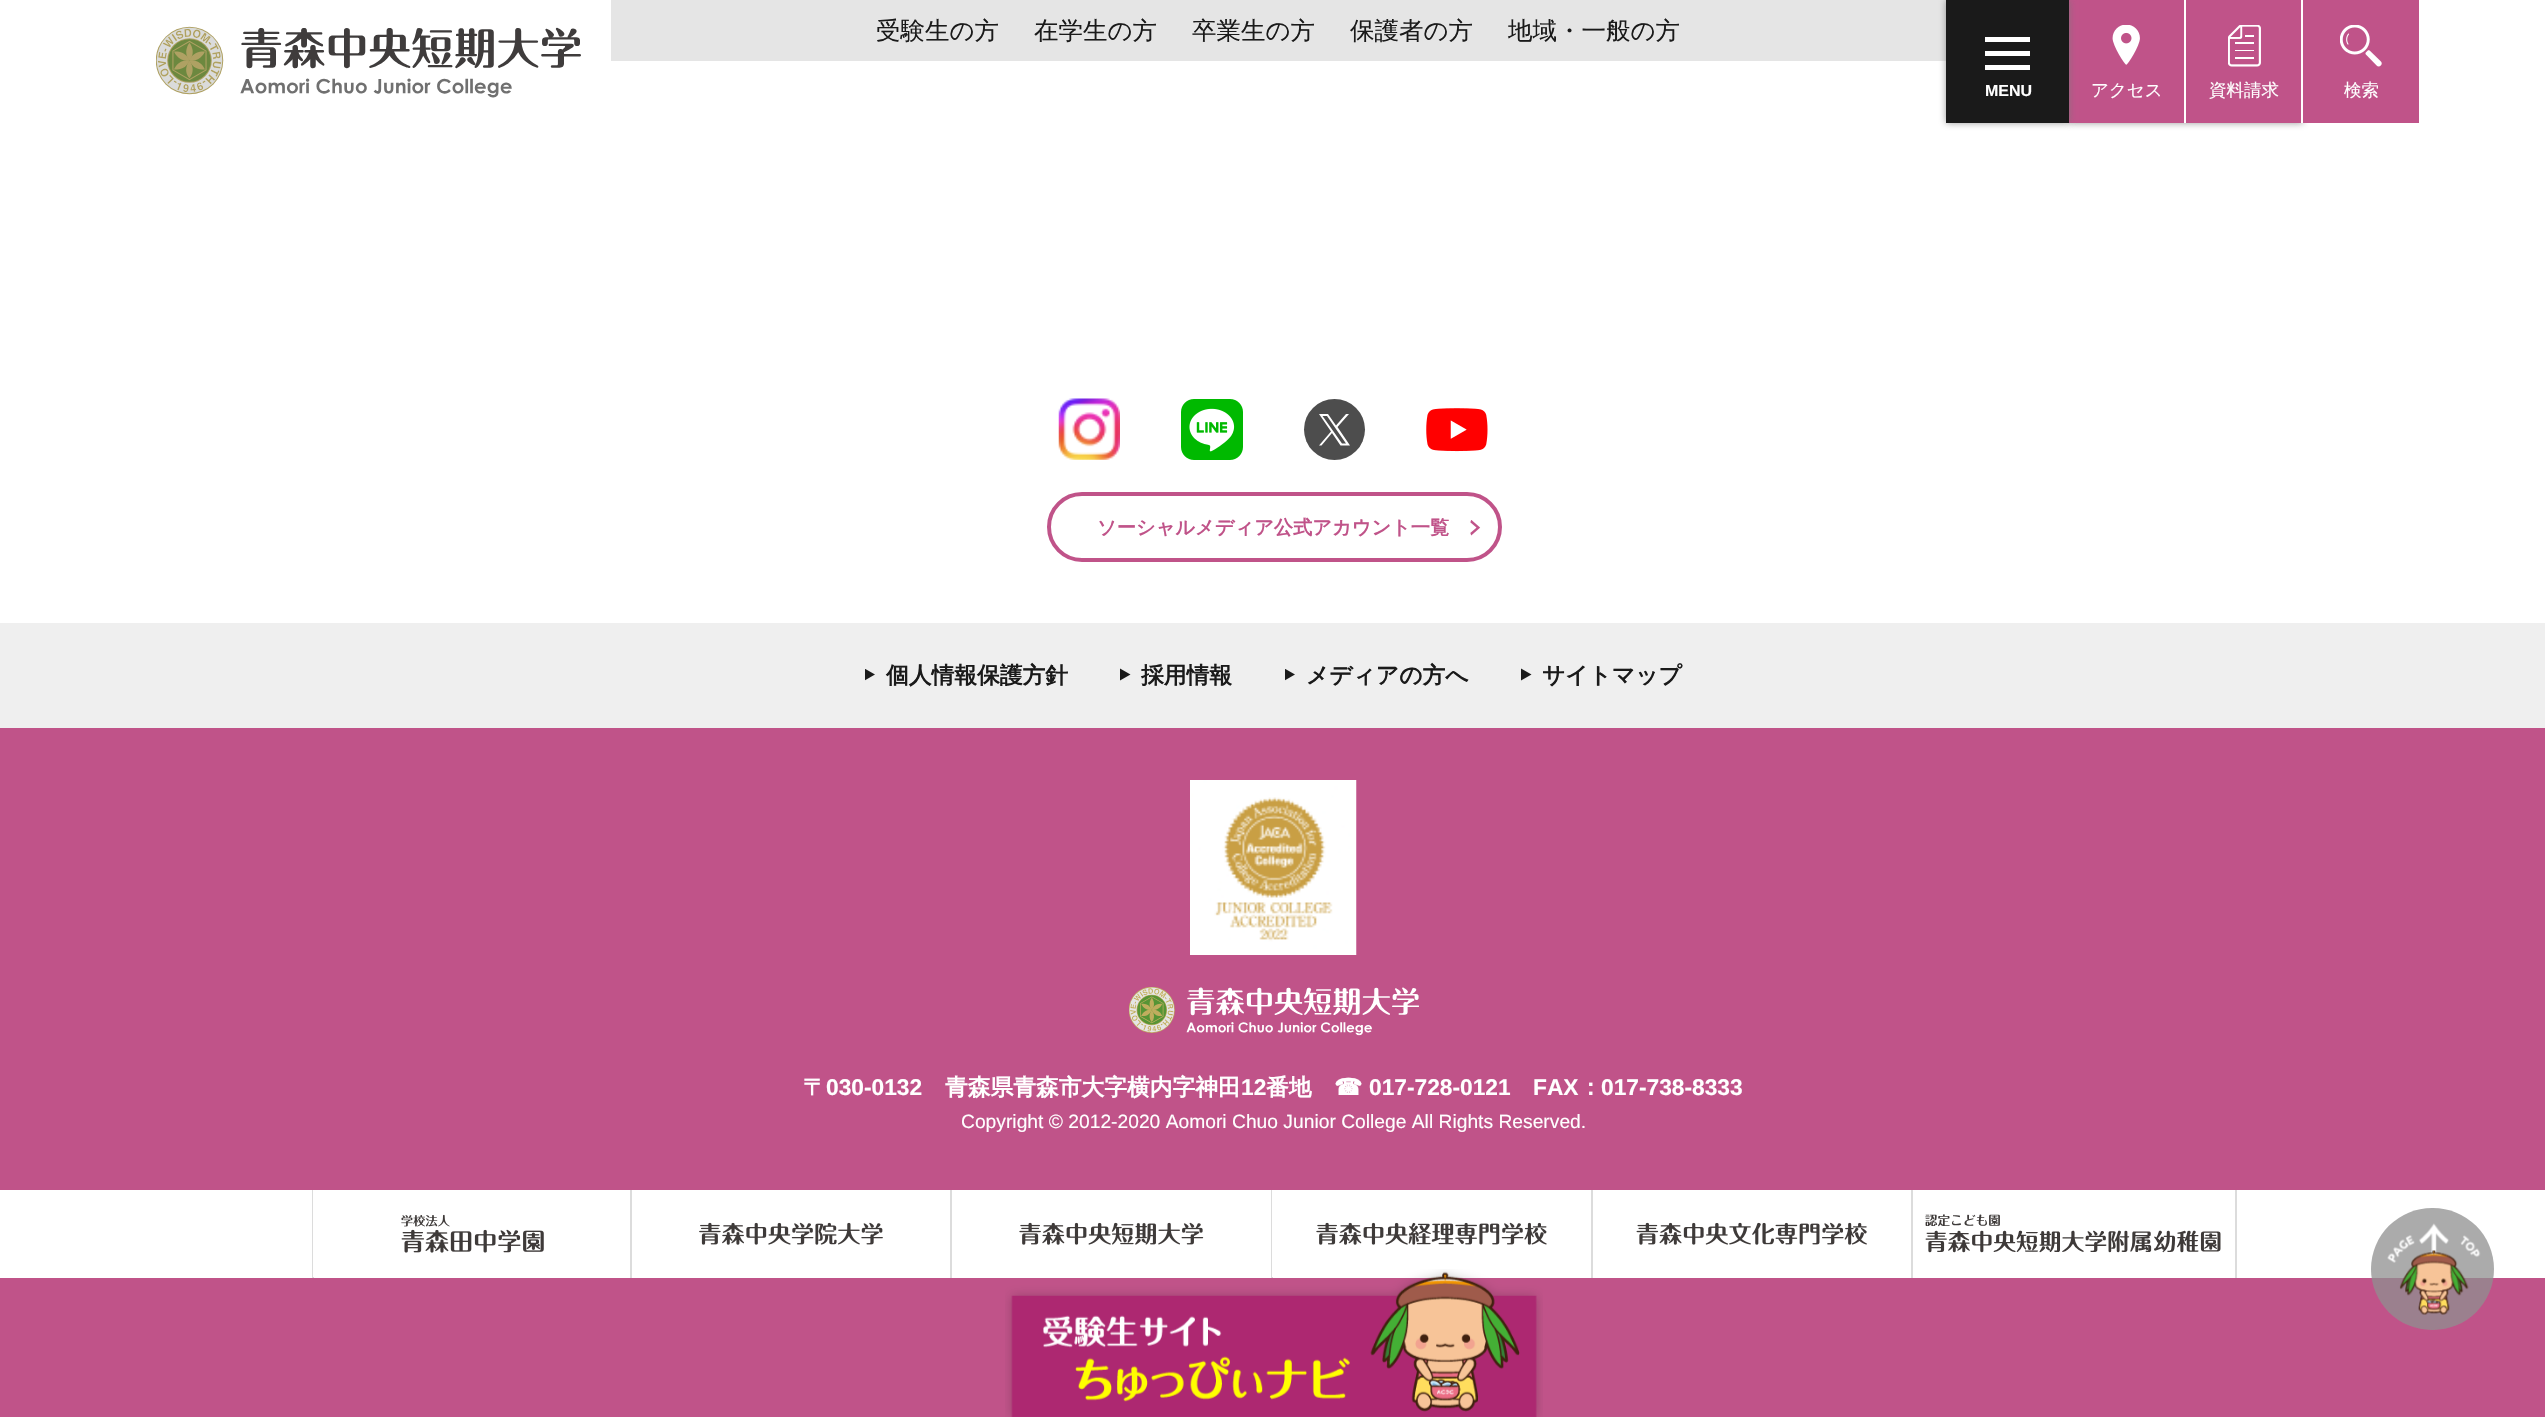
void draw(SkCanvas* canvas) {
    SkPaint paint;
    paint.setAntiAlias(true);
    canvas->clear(0xFFFFFFFF);
    canvas->drawImageRect(SkImages::DeferredFromEncodedData(SkData::MakeFromFileName("img1.png")), SkRect::MakeXYWH(156, 26, 425, 72), SkSamplingOptions());
    paint.setColor(0xFFE5E5E5);
    canvas->drawRect(SkRect::MakeXYWH(611, 0, 1335, 61), paint);
    SkFont font1(fontMgr->matchFamilyStyle("WenQuanYi Zen Hei", SkFontStyle(500, SkFontStyle::kNormal_Width, SkFontStyle::kUpright_Slant)), 24.5f);
    font1.setSubpixel(true);
    paint.setColor(0xFF1A1A1A);
    canvas->drawString("受験生の方", 876, 39, font1, paint);
    canvas->drawString("在学生の方", 1034, 39, font1, paint);
    canvas->drawString("卒業生の方", 1192, 39, font1, paint);
    canvas->drawString("保護者の方", 1350, 39, font1, paint);
    canvas->drawString("地域・一般の方", 1508, 39, font1, paint);
    paint.setColor(0xBF777777);
    paint.setMaskFilter(SkMaskFilter::MakeBlur(kNormal_SkBlurStyle, 3.5f));
    canvas->drawRect(SkRect::MakeXYWH(2069, 0, 234, 123), paint);
    paint.setMaskFilter(nullptr);
    paint.setColor(0xFFC05389);
    canvas->drawRect(SkRect::MakeXYWH(2069, 0, 115, 123), paint);
    paint.setColor(0xBF777777);
    paint.setMaskFilter(SkMaskFilter::MakeBlur(kNormal_SkBlurStyle, 3.5f));
    canvas->drawRect(SkRect::MakeXYWH(1946, 0, 123, 123), paint);
    paint.setMaskFilter(nullptr);
    paint.setColor(0xFF1A1A1A);
    canvas->drawRect(SkRect::MakeXYWH(1946, 0, 123, 123), paint);
    paint.setColor(0xFFFFFFFF);
    canvas->drawRect(SkRect::MakeXYWH(1985, 37, 45, 5), paint);
    canvas->drawRect(SkRect::MakeXYWH(1985, 51, 45, 5), paint);
    canvas->drawRect(SkRect::MakeXYWH(1985, 65, 45, 5), paint);
    SkFont font2(fontMgr->matchFamilyStyle("Liberation Sans", SkFontStyle::Bold()), 16);
    font2.setSubpixel(true);
    canvas->drawString("MENU", 1985, 96, font2, paint);
    canvas->drawRect(SkRect::MakeXYWH(2184, 0, 2, 123), paint);
    canvas->drawImageRect(SkImages::DeferredFromEncodedData(SkData::MakeFromFileName("img2.png")), SkRect::MakeXYWH(2112, 25, 28, 40), SkSamplingOptions());
    SkFont font3(fontMgr->matchFamilyStyle("WenQuanYi Zen Hei", SkFontStyle(500, SkFontStyle::kNormal_Width, SkFontStyle::kUpright_Slant)), 17.5f);
    font3.setSubpixel(true);
    canvas->drawString("アクセス", 2091, 96, font3, paint);
    canvas->drawRect(SkRect::MakeXYWH(2301, 0, 2, 123), paint);
    paint.setColor(0xFFC05389);
    canvas->drawRect(SkRect::MakeXYWH(2186, 0, 115, 123), paint);
    canvas->drawImageRect(SkImages::DeferredFromEncodedData(SkData::MakeFromFileName("img3.png")), SkRect::MakeXYWH(2228, 25, 33, 42), SkSamplingOptions());
    paint.setColor(0xFFFFFFFF);
    canvas->drawString("資料請求", 2209, 96, font3, paint);
    paint.setColor(0xFFC05389);
    canvas->drawRect(SkRect::MakeXYWH(2303, 0, 116, 123), paint);
    canvas->drawImageRect(SkImages::DeferredFromEncodedData(SkData::MakeFromFileName("img4.png")), SkRect::MakeXYWH(2340, 25, 42, 42), SkSamplingOptions());
    paint.setColor(0xFFFFFFFF);
    canvas->drawString("検索", 2344, 96, font3, paint);
    canvas->drawImageRect(SkImages::DeferredFromEncodedData(SkData::MakeFromFileName("img5.png")), SkRect::MakeXYWH(1058, 398, 62, 62), SkSamplingOptions());
    canvas->drawImageRect(SkImages::DeferredFromEncodedData(SkData::MakeFromFileName("img6.png")), SkRect::MakeXYWH(1181, 399, 62, 61), SkSamplingOptions());
    paint.setColor(0xFF4D4D4D);
    canvas->drawCircle(1334.5f, 429.5f, 30.5f, paint);
    paint.setColor(0xFFFFFFFF);
    canvas->drawPath(SkPathBuilder().moveTo(1337.5f, 427).lineTo(1349, 414).lineTo(1346, 414).lineTo(1336, 425.5f).lineTo(1328, 414).lineTo(1319, 414).lineTo(1331, 431.5f).lineTo(1319, 445.5f).lineTo(1321.5f, 445.5f).lineTo(1332, 433).lineTo(1340.5f, 445.5f).lineTo(1350, 445.5f).close().moveTo(1333.5f, 431.5f).lineTo(1322.5f, 416).lineTo(1327, 416).lineTo(1346, 443.5f).lineTo(1342, 443.5f).close().detach(), paint);
    canvas->drawImageRect(SkImages::DeferredFromEncodedData(SkData::MakeFromFileName("img7.png")), SkRect::MakeXYWH(1426, 408, 62, 44), SkSamplingOptions());
    canvas->drawImageRect(SkImages::DeferredFromEncodedData(SkData::MakeFromFileName("img8.png")), SkRect::MakeXYWH(1470, 520, 11, 16), SkSamplingOptions());
    paint.setStyle(SkPaint::kStroke_Style);
    paint.setStrokeWidth(4);
    paint.setColor(0xFFC05389);
    canvas->drawRoundRect(SkRect::MakeXYWH(1049, 494, 451, 66), 33, 33, paint);
    SkFont font4(fontMgr->matchFamilyStyle("WenQuanYi Zen Hei", SkFontStyle::Bold()), 19.25f);
    font4.setSubpixel(true);
    paint.setStyle(SkPaint::kFill_Style);
    canvas->drawString("ソーシャルメディア公式アカウント一覧", 1097, 534, font4, paint);
    canvas->drawRect(SkRect::MakeXYWH(0, 728, 2545, 689), paint);
    paint.setColor(0xFFEFEFEF);
    canvas->drawRect(SkRect::MakeXYWH(0, 623, 2545, 105), paint);
    SkFont font5(fontMgr->matchFamilyStyle("WenQuanYi Zen Hei", SkFontStyle::Bold()), 22.75f);
    font5.setSubpixel(true);
    paint.setColor(0xFF1A1A1A);
    canvas->drawString("個人情報保護方針", 886, 683, font5, paint);
    canvas->save();
    canvas->clipRect(SkRect::MakeXYWH(865, 669, 10, 12));
    canvas->drawPath(SkPathBuilder().moveTo(864.5f, 680.5f).lineTo(864.5f, 668.5f).lineTo(875, 674.5f).close().detach(), paint);
    canvas->restore();
    canvas->drawString("採用情報", 1141, 683, font5, paint);
    canvas->drawPath(SkPathBuilder().moveTo(1120, 680.5f).lineTo(1120, 668.5f).lineTo(1130.5f, 674.5f).close().detach(), paint);
    canvas->drawString("メディアの方へ", 1306, 683, font5, paint);
    canvas->save();
    canvas->clipRect(SkRect::MakeXYWH(1285, 669, 10, 12));
    canvas->drawPath(SkPathBuilder().moveTo(1284.5f, 680.5f).lineTo(1284.5f, 668.5f).lineTo(1295, 674.5f).close().detach(), paint);
    canvas->restore();
    canvas->drawString("サイトマップ", 1542, 683, font5, paint);
    canvas->drawPath(SkPathBuilder().moveTo(1521, 680.5f).lineTo(1521, 668.5f).lineTo(1531.5f, 674.5f).close().detach(), paint);
    canvas->drawImageRect(SkImages::DeferredFromEncodedData(SkData::MakeFromFileName("img9.png")), SkRect::MakeXYWH(1190, 780, 167, 175), SkSamplingOptions());
    canvas->drawImageRect(SkImages::DeferredFromEncodedData(SkData::MakeFromFileName("img10.png")), SkRect::MakeXYWH(1129, 987, 290, 49), SkSamplingOptions());
    paint.setColor(0xFFFFFFFF);
    canvas->drawString("〒", 803, 1095, font5, paint);
    SkFont font6(fontMgr->matchFamilyStyle("Liberation Sans", SkFontStyle::Bold()), 22.75f);
    font6.setSubpixel(true);
    canvas->drawString("030-0132", 826, 1095, font6, paint);
    canvas->drawString("青森県青森市大字横内字神田", 945, 1095, font5, paint);
    canvas->drawString("12", 1241, 1095, font6, paint);
    canvas->drawString("番地", 1266, 1095, font5, paint);
    SkFont font7(fontMgr->matchFamilyStyle("DejaVu Sans", SkFontStyle::Bold()), 22.75f);
    font7.setSubpixel(true);
    canvas->drawString("☎", 1334, 1095, font7, paint);
    canvas->drawString("017-728-0121", 1369, 1095, font6, paint);
    canvas->drawString("FAX", 1533, 1095, font6, paint);
    canvas->drawString("：", 1579, 1095, font5, paint);
    canvas->drawString("017-738-8333", 1601, 1095, font6, paint);
    SkFont font8(fontMgr->matchFamilyStyle("Liberation Sans", SkFontStyle::Normal()), 19.25f);
    font8.setSubpixel(true);
    canvas->drawString("Copyright © 2012-2020 Aomori Chuo Junior College All Rights Reserved.", 961, 1128, font8, paint);
    canvas->drawRect(SkRect::MakeXYWH(0, 1190, 2545, 88), paint);
    paint.setColor(0xFFDCDCDC);
    canvas->drawRect(SkRect::MakeXYWH(2235, 1190, 2, 88), paint);
    canvas->drawRect(SkRect::MakeXYWH(312, 1190, 2, 88), paint);
    canvas->drawRect(SkRect::MakeXYWH(630, 1190, 2, 88), paint);
    canvas->drawImageRect(SkImages::DeferredFromEncodedData(SkData::MakeFromFileName("img11.png")), SkRect::MakeXYWH(313, 1190, 231, 87), SkSamplingOptions());
    canvas->drawRect(SkRect::MakeXYWH(950, 1190, 2, 88), paint);
    canvas->drawImageRect(SkImages::DeferredFromEncodedData(SkData::MakeFromFileName("img12.png")), SkRect::MakeXYWH(699, 1222, 184, 23), SkSamplingOptions());
    canvas->drawRect(SkRect::MakeXYWH(1271, 1190, 2, 88), paint);
    canvas->drawImageRect(SkImages::DeferredFromEncodedData(SkData::MakeFromFileName("img13.png")), SkRect::MakeXYWH(1019, 1222, 185, 23), SkSamplingOptions());
    canvas->drawRect(SkRect::MakeXYWH(1591, 1190, 2, 88), paint);
    canvas->drawImageRect(SkImages::DeferredFromEncodedData(SkData::MakeFromFileName("img14.png")), SkRect::MakeXYWH(1272, 1190, 275, 87), SkSamplingOptions());
    canvas->drawRect(SkRect::MakeXYWH(1911, 1190, 2, 88), paint);
    canvas->drawImageRect(SkImages::DeferredFromEncodedData(SkData::MakeFromFileName("img15.png")), SkRect::MakeXYWH(1636, 1222, 231, 23), SkSamplingOptions());
    canvas->drawImageRect(SkImages::DeferredFromEncodedData(SkData::MakeFromFileName("img16.png")), SkRect::MakeXYWH(1925, 1214, 296, 39), SkSamplingOptions());
    canvas->drawImageRect(SkImages::DeferredFromEncodedData(SkData::MakeFromFileName("img17.png")), SkRect::MakeXYWH(1005, 1269, 538, 148), SkSamplingOptions());
    paint.setColor(0xBF8F8F8F);
    canvas->drawRoundRect(SkRect::MakeXYWH(2371, 1208, 123, 122), 61, 61, paint);
    canvas->drawImageRect(SkImages::DeferredFromEncodedData(SkData::MakeFromFileName("img18.png")), SkRect::MakeXYWH(2387, 1223, 94, 92), SkSamplingOptions());
}
